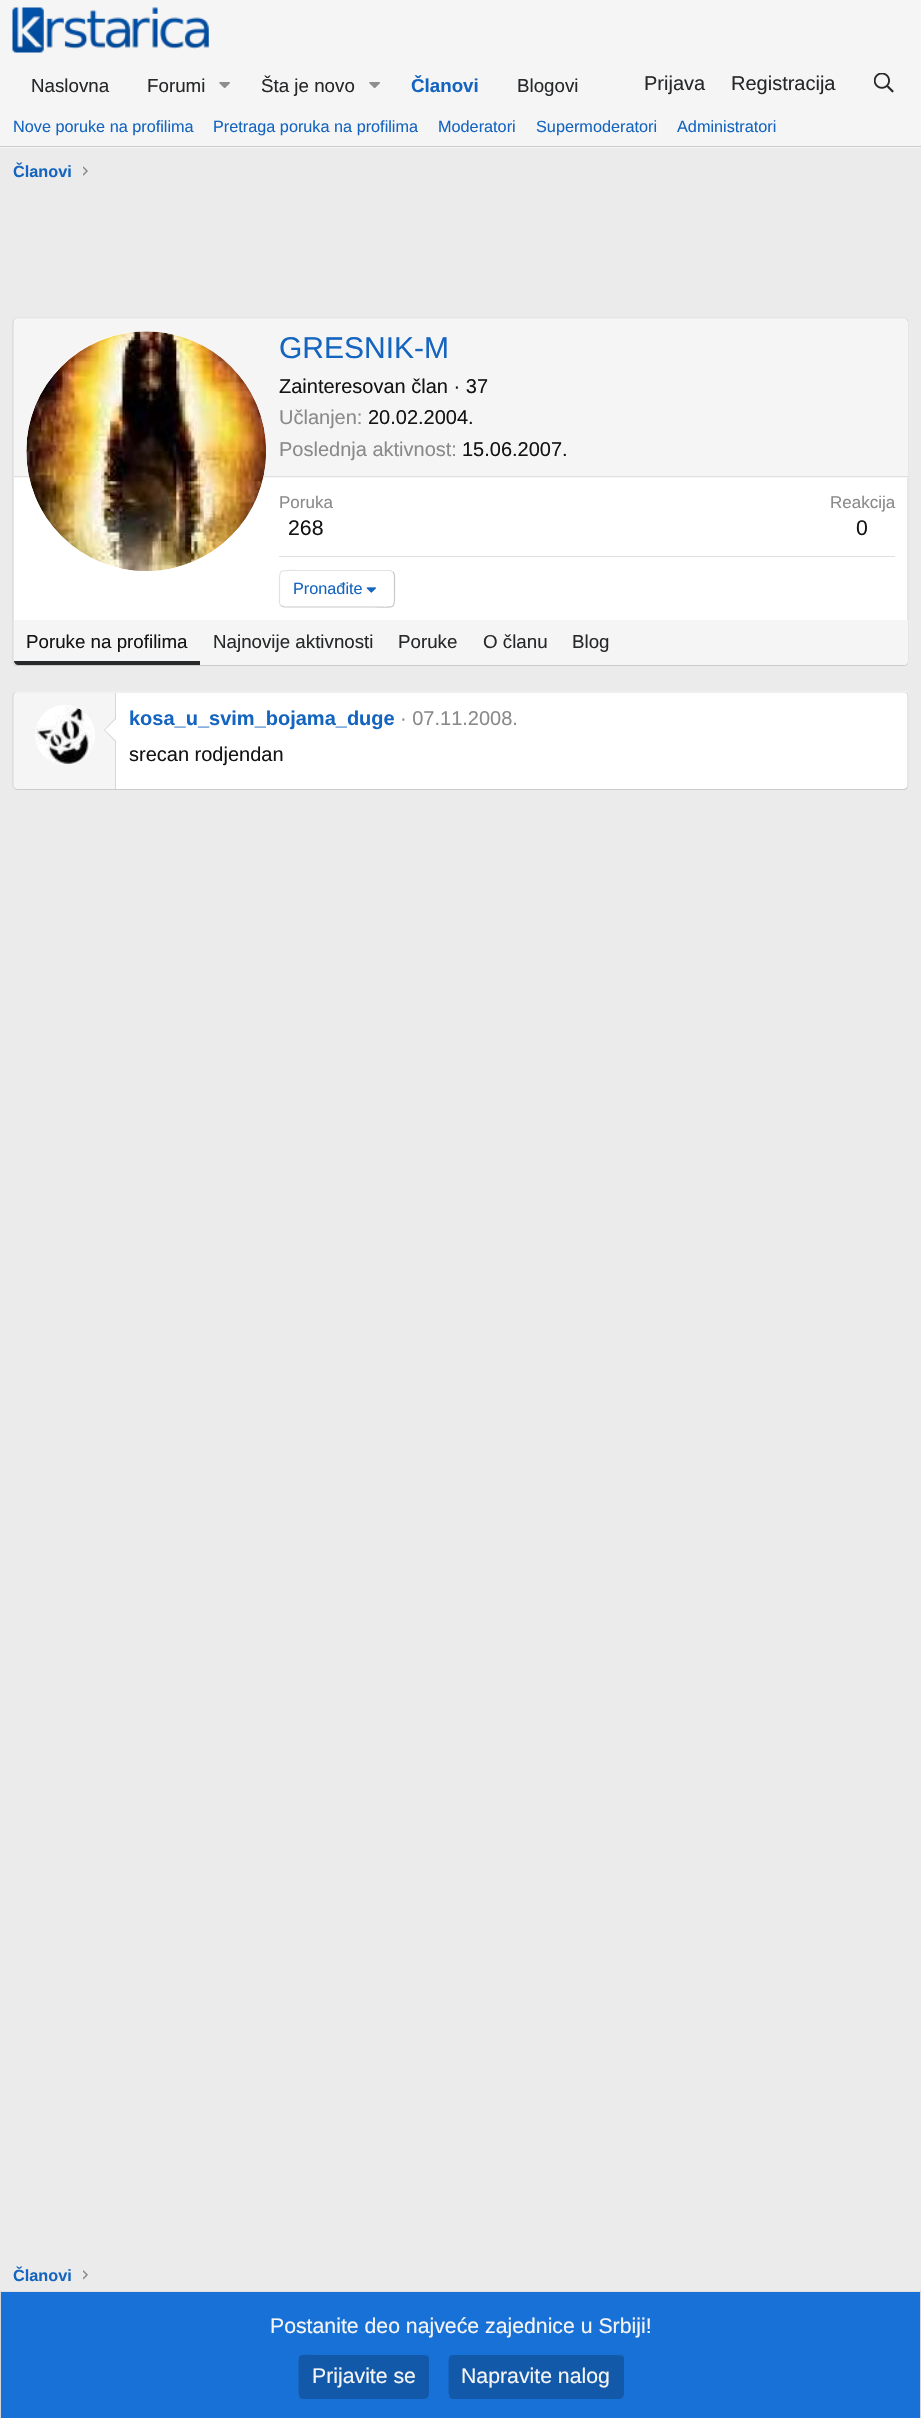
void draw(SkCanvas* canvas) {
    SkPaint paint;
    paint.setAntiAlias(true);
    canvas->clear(0xFFEBEBEB);
    paint.setColor(0xFFF5F5F5);
    canvas->drawRect(SkRect::MakeXYWH(0, 0, 921, 60), paint);
    canvas->drawImageRect(SkImages::DeferredFromEncodedData(SkData::MakeFromFileName("img1.png")), SkRect::MakeXYWH(12, 7, 197, 46), SkSamplingOptions());
    canvas->drawRect(SkRect::MakeXYWH(0, 60, 921, 88), paint);
    SkFont font1(fontMgr->matchFamilyStyle("Liberation Sans", SkFontStyle::Normal()), 18.75f);
    font1.setSubpixel(true);
    paint.setColor(0xFF26282A);
    canvas->drawString("Naslovna", 31, 92, font1, paint);
    canvas->drawString("Forumi", 147, 92, font1, paint);
    canvas->drawImageRect(SkImages::DeferredFromEncodedData(SkData::MakeFromFileName("img2.png")), SkRect::MakeXYWH(219, 82, 11, 7), SkSamplingOptions());
    canvas->drawString("Šta je novo", 261, 92, font1, paint);
    canvas->drawImageRect(SkImages::DeferredFromEncodedData(SkData::MakeFromFileName("img2.png")), SkRect::MakeXYWH(369, 82, 11, 7), SkSamplingOptions());
    SkFont font2(fontMgr->matchFamilyStyle("Liberation Sans", SkFontStyle::Bold()), 18.75f);
    font2.setSubpixel(true);
    paint.setColor(0xFF1565C0);
    canvas->drawString("Članovi", 411, 92, font2, paint);
    paint.setColor(0xFF26282A);
    canvas->drawString("Blogovi", 517, 92, font1, paint);
    SkFont font3(fontMgr->matchFamilyStyle("Liberation Sans", SkFontStyle::Normal()), 20);
    font3.setSubpixel(true);
    canvas->drawString("Prijava", 644, 90, font3, paint);
    canvas->drawString("Registracija", 731, 90, font3, paint);
    canvas->drawImageRect(SkImages::DeferredFromEncodedData(SkData::MakeFromFileName("img3.png")), SkRect::MakeXYWH(874, 73, 20, 20), SkSamplingOptions());
    paint.setColor(0xFFCCCCCC);
    canvas->drawRect(SkRect::MakeXYWH(0, 146, 921, 1), paint);
    SkFont font4(fontMgr->matchFamilyStyle("Liberation Sans", SkFontStyle::Normal()), 16.25f);
    font4.setSubpixel(true);
    paint.setColor(0xFF1565C0);
    canvas->drawString("Nove poruke na profilima", 13, 132, font4, paint);
    canvas->drawString("Pretraga poruka na profilima", 213, 132, font4, paint);
    canvas->drawString("Moderatori", 438, 132, font4, paint);
    canvas->drawString("Supermoderatori", 536, 132, font4, paint);
    canvas->drawString("Administratori", 677, 132, font4, paint);
    SkFont font5(fontMgr->matchFamilyStyle("Liberation Sans", SkFontStyle::Bold()), 16.25f);
    font5.setSubpixel(true);
    canvas->drawString("Članovi", 13, 177, font5, paint);
    canvas->drawImageRect(SkImages::DeferredFromEncodedData(SkData::MakeFromFileName("img4.png")), SkRect::MakeXYWH(83, 166, 5, 10), SkSamplingOptions());
    paint.setColor(0xFFFFFFFF);
    canvas->drawRoundRect(SkRect::MakeXYWH(13, 318, 896, 348), 5, 5, paint);
    paint.setStyle(SkPaint::kStroke_Style);
    paint.setStrokeWidth(1.2f);
    paint.setColor(0xFFE0E0E0);
    canvas->drawPath(SkPathBuilder().moveTo(14.5f, 319.5f).cubicTo(15, 318.5f, 16.5f, 318, 17.5f, 318).lineTo(904, 318).cubicTo(905, 318, 906, 318.5f, 907, 319.5f).detach(), paint);
    paint.setColor(0xFFD6D6D6);
    canvas->drawPath(SkPathBuilder().moveTo(907, 319.5f).cubicTo(907.5f, 320, 908, 321.5f, 908, 322.5f).lineTo(908, 661).cubicTo(908, 662.5f, 907.5f, 663.5f, 907, 664.5f).detach(), paint);
    paint.setColor(0xFFCCCCCC);
    canvas->drawPath(SkPathBuilder().moveTo(907, 664.5f).cubicTo(906, 665, 905, 665.5f, 904, 665.5f).lineTo(17.5f, 665.5f).cubicTo(16.5f, 665.5f, 15, 665, 14.5f, 664.5f).detach(), paint);
    paint.setColor(0xFFD6D6D6);
    canvas->drawPath(SkPathBuilder().moveTo(14.5f, 664.5f).cubicTo(13.5f, 663.5f, 13, 662.5f, 13, 661).lineTo(13, 322.5f).cubicTo(13, 321.5f, 13.5f, 320, 14.5f, 319.5f).detach(), paint);
    paint.setStyle(SkPaint::kFill_Style);
    paint.setColor(0xFFF5F5F5);
    canvas->drawPath(SkPathBuilder().moveTo(18, 319).lineTo(904, 319).cubicTo(906, 319, 908, 321, 908, 323).lineTo(908, 478).lineTo(14, 478).lineTo(14, 323).cubicTo(14, 321, 16, 319, 18, 319).close().detach(), paint);
    paint.setColor(0xFFE0E0E0);
    canvas->drawRect(SkRect::MakeXYWH(14, 476, 894, 1), paint);
    paint.setColor(0xFFFFFFFF);
    canvas->drawCircle(146, 451, 120, paint);
    canvas->drawImageRect(SkImages::DeferredFromEncodedData(SkData::MakeFromFileName("img5.png")), SkRect::MakeXYWH(26, 331, 240, 240), SkSamplingOptions());
    SkFont font6(fontMgr->matchFamilyStyle("Liberation Sans", SkFontStyle::Normal()), 30);
    font6.setSubpixel(true);
    paint.setColor(0xFF1565C0);
    canvas->drawString("GRESNIK-M", 279, 358, font6, paint);
    paint.setColor(0xFF141414);
    canvas->drawString("Zainteresovan član · 37", 279, 393, font3, paint);
    paint.setColor(0xFF8A8A8A);
    canvas->drawString("Učlanjen:", 279, 424, font3, paint);
    paint.setColor(0xFF141414);
    canvas->drawString("20.02.2004.", 368, 424, font3, paint);
    paint.setColor(0xFF8A8A8A);
    canvas->drawString("Poslednja aktivnost:", 279, 456, font3, paint);
    paint.setColor(0xFF141414);
    canvas->drawString("15.06.2007.", 462, 456, font3, paint);
    SkFont font7(fontMgr->matchFamilyStyle("Liberation Sans", SkFontStyle::Normal()), 17);
    font7.setSubpixel(true);
    paint.setColor(0xFF8A8A8A);
    canvas->drawString("Poruka", 279, 508, font7, paint);
    SkFont font8(fontMgr->matchFamilyStyle("Liberation Sans", SkFontStyle::Normal()), 21.25f);
    font8.setSubpixel(true);
    paint.setColor(0xFF141414);
    canvas->drawString("268", 288, 535, font8, paint);
    paint.setColor(0xFF8A8A8A);
    canvas->drawString("Reakcija", 830, 508, font7, paint);
    paint.setColor(0xFF141414);
    canvas->drawString("0", 856, 535, font8, paint);
    paint.setColor(0xFFE0E0E0);
    canvas->drawRect(SkRect::MakeXYWH(279, 556, 616, 1), paint);
    paint.setStyle(SkPaint::kStroke_Style);
    paint.setColor(0xFFC9C9C9);
    canvas->drawPath(SkPathBuilder().moveTo(393, 572).cubicTo(395, 574, 394.5f, 577, 394.5f, 579.5f).lineTo(394.5f, 589).cubicTo(394.5f, 611, 397, 607, 372.5f, 607).lineTo(284, 607).lineTo(280.5f, 605.5f).detach(), paint);
    paint.setColor(0xFFE3E3E3);
    canvas->drawPath(SkPathBuilder().moveTo(280.5f, 605.5f).cubicTo(278.5f, 603.5f, 279.5f, 600.5f, 279.5f, 598).lineTo(279.5f, 589).cubicTo(279.5f, 566.5f, 277, 570.5f, 301.5f, 570.5f).lineTo(390, 570.5f).lineTo(393, 572).detach(), paint);
    paint.setStyle(SkPaint::kFill_Style);
    paint.setColor(0xFF1565C0);
    canvas->drawString("Pronađite", 293, 594, font4, paint);
    canvas->drawImageRect(SkImages::DeferredFromEncodedData(SkData::MakeFromFileName("img6.png")), SkRect::MakeXYWH(366, 587, 10, 6), SkSamplingOptions());
    paint.setColor(0xFFF5F5F5);
    canvas->drawPath(SkPathBuilder().moveTo(14, 620).lineTo(908, 620).lineTo(908, 661).cubicTo(908, 663, 906, 665, 904, 665).lineTo(18, 665).cubicTo(16, 665, 14, 663, 14, 661).close().detach(), paint);
    paint.setColor(0xFF26282A);
    canvas->drawPath(SkPathBuilder().moveTo(14, 661).lineTo(200, 661).lineTo(200, 665).lineTo(18, 665).cubicTo(16, 665, 14, 663, 14, 661).close().detach(), paint);
    paint.setColor(0xFF141414);
    canvas->drawString("Poruke na profilima", 26, 648, font1, paint);
    paint.setColor(0xFF26282A);
    canvas->drawString("Najnovije aktivnosti", 213, 648, font1, paint);
    canvas->drawString("Poruke", 398, 648, font1, paint);
    canvas->drawString("O članu", 483, 648, font1, paint);
    canvas->drawString("Blog", 572, 648, font1, paint);
    paint.setColor(0xFFFFFFFF);
    canvas->drawRoundRect(SkRect::MakeXYWH(13, 691, 896, 99), 5, 5, paint);
    paint.setStyle(SkPaint::kStroke_Style);
    paint.setColor(0xFFE0E0E0);
    canvas->drawPath(SkPathBuilder().moveTo(14.5f, 693).cubicTo(15, 692.5f, 16.5f, 692, 17.5f, 692).lineTo(904, 692).cubicTo(905, 692, 906, 692.5f, 907, 693).detach(), paint);
    paint.setColor(0xFFD6D6D6);
    canvas->drawPath(SkPathBuilder().moveTo(907, 693).cubicTo(907.5f, 694, 908, 695, 908, 696).lineTo(908, 785).cubicTo(908, 786, 907.5f, 787.5f, 907, 788).detach(), paint);
    paint.setColor(0xFFCCCCCC);
    canvas->drawPath(SkPathBuilder().moveTo(907, 788).cubicTo(906, 789, 905, 789.5f, 904, 789.5f).lineTo(17.5f, 789.5f).cubicTo(16.5f, 789.5f, 15, 789, 14.5f, 788).detach(), paint);
    paint.setColor(0xFFD6D6D6);
    canvas->drawPath(SkPathBuilder().moveTo(14.5f, 788).cubicTo(13.5f, 787.5f, 13, 786, 13, 785).lineTo(13, 696).cubicTo(13, 695, 13.5f, 694, 14.5f, 693).detach(), paint);
    paint.setStyle(SkPaint::kFill_Style);
    paint.setColor(0xFFF5F5F5);
    canvas->drawPath(SkPathBuilder().moveTo(18, 693).lineTo(116, 693).lineTo(116, 789).lineTo(18, 789).cubicTo(16, 789, 14, 787, 14, 785).lineTo(14, 697).cubicTo(14, 695, 16, 693, 18, 693).close().detach(), paint);
    paint.setColor(0xFFD6D6D6);
    canvas->drawRect(SkRect::MakeXYWH(115, 693, 1, 96), paint);
    paint.setColor(0xFFFFFFFF);
    canvas->drawCircle(65, 735, 30, paint);
    canvas->drawImageRect(SkImages::DeferredFromEncodedData(SkData::MakeFromFileName("img7.png")), SkRect::MakeXYWH(35, 706, 60, 59), SkSamplingOptions());
    paint.setColor(0xFFD6D6D6);
    canvas->drawPath(SkPathBuilder().moveTo(116, 717.5f).lineTo(116, 742.5f).lineTo(104, 730).close().detach(), paint);
    paint.setColor(0xFFFFFFFF);
    canvas->drawPath(SkPathBuilder().moveTo(116, 719).lineTo(116, 741).lineTo(105, 730).close().detach(), paint);
    SkFont font9(fontMgr->matchFamilyStyle("Liberation Sans", SkFontStyle::Bold()), 20);
    font9.setSubpixel(true);
    paint.setColor(0xFF1565C0);
    canvas->drawString("kosa_u_svim_bojama_duge", 129, 725, font9, paint);
    paint.setColor(0xFF8A8A8A);
    canvas->drawString("· 07.11.2008.", 400, 725, font3, paint);
    paint.setColor(0xFF141414);
    canvas->drawString("srecan rodjendan", 129, 761, font3, paint);
    paint.setColor(0xFF1565C0);
    canvas->drawString("Članovi", 13, 2281, font5, paint);
    canvas->drawImageRect(SkImages::DeferredFromEncodedData(SkData::MakeFromFileName("img8.png")), SkRect::MakeXYWH(83, 2270, 5, 10), SkSamplingOptions());
    paint.setColor(0xFF1871D7);
    canvas->drawRect(SkRect::MakeXYWH(1, 2292, 919, 126), paint);
    paint.setColor(0xFFE0E0E0);
    canvas->drawRect(SkRect::MakeXYWH(0, 2291, 921, 1), paint);
    paint.setColor(0xFFD6D6D6);
    canvas->drawRect(SkRect::MakeXYWH(920, 2291, 1, 127), paint);
    canvas->drawRect(SkRect::MakeXYWH(0, 2291, 1, 127), paint);
    paint.setColor(0xFFF5F5F5);
    canvas->drawString("Postanite deo najveće zajednice u Srbiji!", 270, 2333, font8, paint);
    paint.setColor(0xFF1259A9);
    canvas->drawRoundRect(SkRect::MakeXYWH(298, 2354, 131, 45), 5, 5, paint);
    paint.setStyle(SkPaint::kStroke_Style);
    canvas->drawPath(SkPathBuilder().moveTo(427, 2355.5f).cubicTo(429, 2358, 428, 2362, 428, 2364.5f).lineTo(428, 2376).cubicTo(428, 2403, 432, 2398, 403.5f, 2398).lineTo(302.5f, 2398).lineTo(299.5f, 2397).detach(), paint);
    paint.setColor(0xFF1871D7);
    canvas->drawPath(SkPathBuilder().moveTo(299.5f, 2397).cubicTo(297, 2394.5f, 298, 2390.5f, 298, 2388).lineTo(298, 2376).cubicTo(298, 2349.5f, 294, 2354.5f, 322.5f, 2354.5f).lineTo(424, 2354.5f).lineTo(427, 2355.5f).detach(), paint);
    paint.setStyle(SkPaint::kFill_Style);
    paint.setColor(0xFFF5F5F5);
    canvas->drawString("Prijavite se", 312, 2383, font8, paint);
    paint.setColor(0xFF1259A9);
    canvas->drawRoundRect(SkRect::MakeXYWH(448, 2354, 176, 45), 5, 5, paint);
    paint.setStyle(SkPaint::kStroke_Style);
    canvas->drawPath(SkPathBuilder().moveTo(622, 2355.5f).cubicTo(624, 2358, 623, 2362, 623, 2364.5f).lineTo(623, 2388).cubicTo(623, 2391.5f, 624, 2398, 619, 2398).lineTo(452, 2398).lineTo(449.5f, 2397).detach(), paint);
    paint.setColor(0xFF1871D7);
    canvas->drawPath(SkPathBuilder().moveTo(449.5f, 2397).cubicTo(447, 2394.5f, 448, 2390.5f, 448, 2388).lineTo(448, 2364.5f).cubicTo(448, 2361, 447, 2354.5f, 452.5f, 2354.5f).lineTo(619, 2354.5f).lineTo(622, 2355.5f).detach(), paint);
    paint.setStyle(SkPaint::kFill_Style);
    paint.setColor(0xFFF5F5F5);
    canvas->drawString("Napravite nalog", 461, 2383, font8, paint);
}
